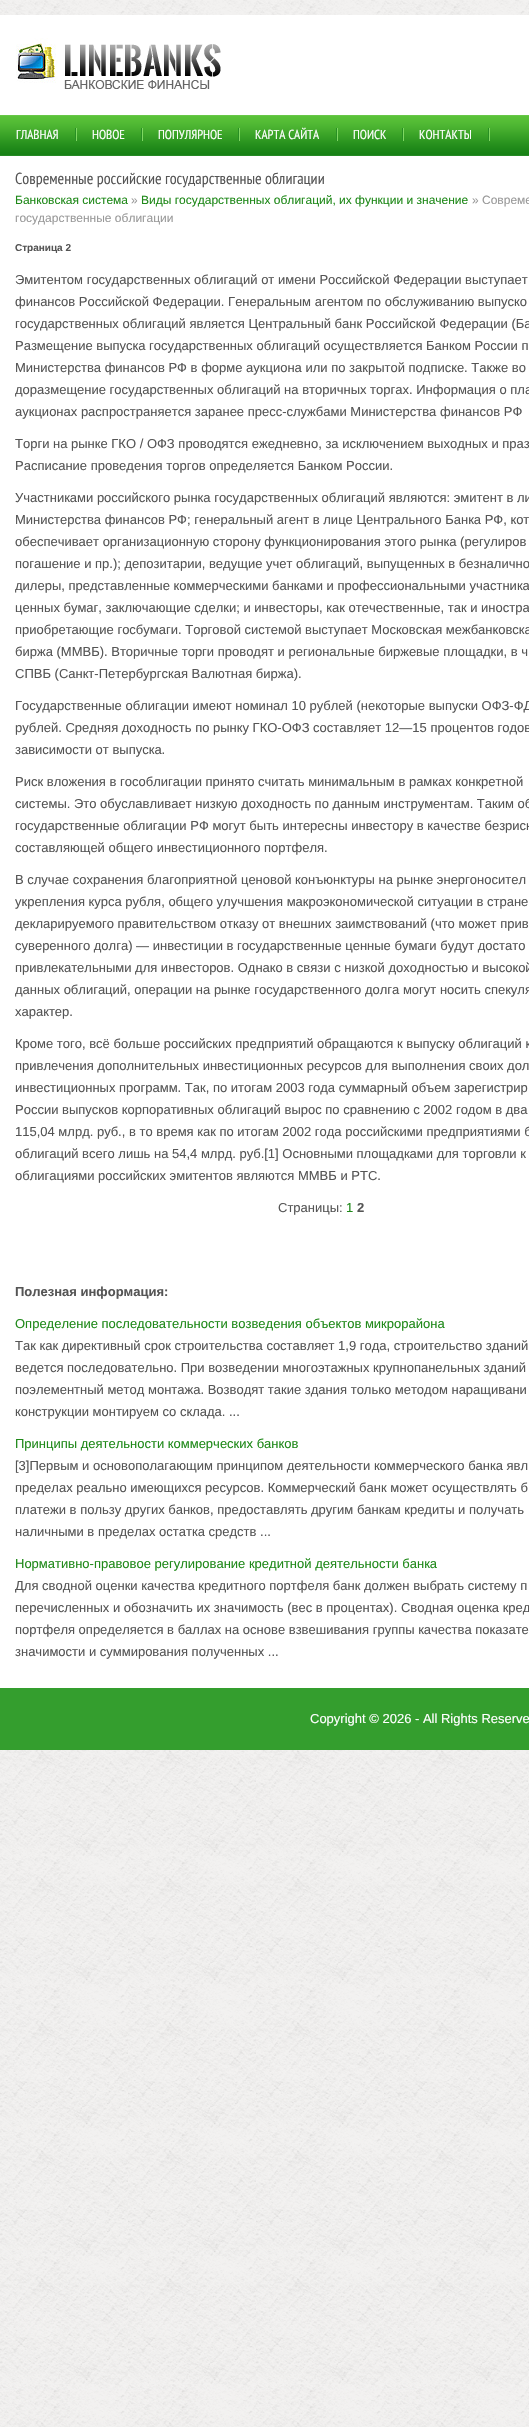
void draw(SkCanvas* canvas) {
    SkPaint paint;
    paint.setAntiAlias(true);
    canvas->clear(0xFFFFFFFF);
    canvas->drawImageRect(SkImages::DeferredFromEncodedData(SkData::MakeFromFileName("img1.png")), SkRect::MakeXYWH(0, 0, 529, 2427), SkSamplingOptions());
    paint.setColor(0xFFFFFFFF);
    canvas->drawRect(SkRect::MakeXYWH(0, 15, 529, 1673), paint);
    canvas->drawImageRect(SkImages::DeferredFromEncodedData(SkData::MakeFromFileName("img2.png")), SkRect::MakeXYWH(16, 38, 205, 51), SkSamplingOptions());
    canvas->drawImageRect(SkImages::DeferredFromEncodedData(SkData::MakeFromFileName("img3.png")), SkRect::MakeXYWH(0, 115, 529, 41), SkSamplingOptions());
    paint.setColor(0xFF7FD862);
    canvas->drawRect(SkRect::MakeXYWH(76, 128, 1, 13), paint);
    paint.setColor(0xFF288F24);
    canvas->drawRect(SkRect::MakeXYWH(75, 128, 1, 13), paint);
    SkFont font1(fontMgr->matchFamilyStyle("PT Sans Narrow", SkFontStyle::Normal()), 13);
    font1.setSubpixel(true);
    paint.setColor(0xFFFFFFFF);
    canvas->drawString("ГЛАВНАЯ", 16, 139, font1, paint);
    paint.setColor(0xFF7FD862);
    canvas->drawRect(SkRect::MakeXYWH(142, 128, 1, 13), paint);
    paint.setColor(0xFF288F24);
    canvas->drawRect(SkRect::MakeXYWH(141, 128, 1, 13), paint);
    paint.setColor(0xFFFFFFFF);
    canvas->drawString("НОВОЕ", 92, 139, font1, paint);
    paint.setColor(0xFF7FD862);
    canvas->drawRect(SkRect::MakeXYWH(239, 128, 1, 13), paint);
    paint.setColor(0xFF288F24);
    canvas->drawRect(SkRect::MakeXYWH(238, 128, 1, 13), paint);
    paint.setColor(0xFFFFFFFF);
    canvas->drawString("ПОПУЛЯРНОЕ", 158, 139, font1, paint);
    paint.setColor(0xFF7FD862);
    canvas->drawRect(SkRect::MakeXYWH(337, 128, 1, 13), paint);
    paint.setColor(0xFF288F24);
    canvas->drawRect(SkRect::MakeXYWH(336, 128, 1, 13), paint);
    paint.setColor(0xFFFFFFFF);
    canvas->drawString("КАРТА САЙТА", 255, 139, font1, paint);
    paint.setColor(0xFF7FD862);
    canvas->drawRect(SkRect::MakeXYWH(403, 128, 1, 13), paint);
    paint.setColor(0xFF288F24);
    canvas->drawRect(SkRect::MakeXYWH(402, 128, 1, 13), paint);
    paint.setColor(0xFFFFFFFF);
    canvas->drawString("ПОИСК", 353, 139, font1, paint);
    paint.setColor(0xFF7FD862);
    canvas->drawRect(SkRect::MakeXYWH(489, 128, 1, 13), paint);
    paint.setColor(0xFF288F24);
    canvas->drawRect(SkRect::MakeXYWH(488, 128, 1, 13), paint);
    paint.setColor(0xFFFFFFFF);
    canvas->drawString("КОНТАКТЫ", 419, 139, font1, paint);
    SkFont font2(fontMgr->matchFamilyStyle("PT Sans Narrow", SkFontStyle::Normal()), 16);
    font2.setSubpixel(true);
    paint.setColor(0xFF555555);
    canvas->drawString("Современные российские государственные облигации", 15, 184, font2, paint);
    SkFont font3(fontMgr->matchFamilyStyle("Liberation Sans", SkFontStyle::Normal()), 12);
    font3.setSubpixel(true);
    paint.setColor(0xFF1F8919);
    canvas->drawString("Банковская система", 15, 204, font3, paint);
    paint.setColor(0xFF999999);
    canvas->drawString("»", 131, 204, font3, paint);
    paint.setColor(0xFF1F8919);
    canvas->drawString("Виды государственных облигаций, их функции и значение", 141, 204, font3, paint);
    paint.setColor(0xFF999999);
    canvas->drawString("» Совреме", 472, 204, font3, paint);
    canvas->drawString("государственные облигации", 15, 222, font3, paint);
    SkFont font4(fontMgr->matchFamilyStyle("Liberation Sans", SkFontStyle::Bold()), 10);
    font4.setSubpixel(true);
    paint.setColor(0xFF555555);
    canvas->drawString("Страница 2", 15, 251, font4, paint);
    SkFont font5(fontMgr->matchFamilyStyle("Liberation Sans", SkFontStyle::Normal()), 13);
    font5.setSubpixel(true);
    canvas->drawString("Эмитентом государственных облигаций от имени Российской Федерации выступает", 15, 284, font5, paint);
    canvas->drawString("финансов Российской Федерации. Генеральным агентом по обслуживанию выпуско", 15, 306, font5, paint);
    canvas->drawString("государственных облигаций является Центральный банк Российской Федерации (Ба", 15, 328, font5, paint);
    canvas->drawString("Размещение выпуска государственных облигаций осуществляется Банком России п", 15, 350, font5, paint);
    canvas->drawString("Министерства финансов РФ в форме аукциона или по закрытой подписке. Также во", 15, 372, font5, paint);
    canvas->drawString("доразмещение государственных облигаций на вторичных торгах. Информация о пла", 15, 394, font5, paint);
    canvas->drawString("аукционах распространяется заранее пресс-службами Министерства финансов РФ", 15, 416, font5, paint);
    canvas->drawString("Торги на рынке ГКО / ОФЗ проводятся ежедневно, за исключением выходных и праз", 15, 448, font5, paint);
    canvas->drawString("Расписание проведения торгов определяется Банком России.", 15, 470, font5, paint);
    canvas->drawString("Участниками российского рынка государственных облигаций являются: эмитент в ли", 15, 502, font5, paint);
    canvas->drawString("Министерства финансов РФ; генеральный агент в лице Центрального Банка РФ, кот", 15, 524, font5, paint);
    canvas->drawString("обеспечивает организационную сторону функционирования этого рынка (регулиров", 15, 546, font5, paint);
    canvas->drawString("погашение и пр.); депозитарии, ведущие учет облигаций, выпущенных в безналично", 15, 568, font5, paint);
    canvas->drawString("дилеры, представленные коммерческими банками и профессиональными участника", 15, 590, font5, paint);
    canvas->drawString("ценных бумаг, заключающие сделки; и инвесторы, как отечественные, так и иностра", 15, 612, font5, paint);
    canvas->drawString("приобретающие госбумаги. Торговой системой выступает Московская межбанковска", 15, 634, font5, paint);
    canvas->drawString("биржа (ММВБ). Вторичные торги проводят и региональные биржевые площадки, в ч", 15, 656, font5, paint);
    canvas->drawString("СПВБ (Санкт-Петербургская Валютная биржа).", 15, 678, font5, paint);
    canvas->drawString("Государственные облигации имеют номинал 10 рублей (некоторые выпуски ОФЗ-ФД", 15, 710, font5, paint);
    canvas->drawString("рублей. Средняя доходность по рынку ГКО-ОФЗ составляет 12—15 процентов годов", 15, 732, font5, paint);
    canvas->drawString("зависимости от выпуска.", 15, 754, font5, paint);
    canvas->drawString("Риск вложения в гособлигации принято считать минимальным в рамках конкретной", 15, 786, font5, paint);
    canvas->drawString("системы. Это обуславливает низкую доходность по данным инструментам. Таким об", 15, 808, font5, paint);
    canvas->drawString("государственные облигации РФ могут быть интересны инвестору в качестве безриск", 15, 830, font5, paint);
    canvas->drawString("составляющей общего инвестиционного портфеля.", 15, 852, font5, paint);
    canvas->drawString("В случае сохранения благоприятной ценовой конъюнктуры на рынке энергоносител", 15, 884, font5, paint);
    canvas->drawString("укрепления курса рубля, общего улучшения макроэкономической ситуации в стране", 15, 906, font5, paint);
    canvas->drawString("декларируемого правительством отказу от внешних заимствований (что может прив", 15, 928, font5, paint);
    canvas->drawString("суверенного долга) — инвестиции в государственные ценные бумаги будут достато", 15, 950, font5, paint);
    canvas->drawString("привлекательными для инвесторов. Однако в связи с низкой доходностью и высокой", 15, 972, font5, paint);
    canvas->drawString("данных облигаций, операции на рынке государственного долга могут носить спекуля", 15, 994, font5, paint);
    canvas->drawString("характер.", 15, 1016, font5, paint);
    canvas->drawString("Кроме того, всё больше российских предприятий обращаются к выпуску облигаций к", 15, 1048, font5, paint);
    canvas->drawString("привлечения дополнительных инвестиционных ресурсов для выполнения своих дол", 15, 1070, font5, paint);
    canvas->drawString("инвестиционных программ. Так, по итогам 2003 года суммарный объем зарегистрир", 15, 1092, font5, paint);
    canvas->drawString("России выпусков корпоративных облигаций вырос по сравнению с 2002 годом в два", 15, 1114, font5, paint);
    canvas->drawString("115,04 млрд. руб., в то время как по итогам 2002 года российскими предприятиями б", 15, 1136, font5, paint);
    canvas->drawString("облигаций всего лишь на 54,4 млрд. руб.[1] Основными площадками для торговли к", 15, 1158, font5, paint);
    canvas->drawString("облигациями российских эмитентов являются ММВБ и РТС.", 15, 1180, font5, paint);
    canvas->drawString("Страницы:", 278, 1212, font5, paint);
    paint.setColor(0xFF1F8919);
    canvas->drawString("1", 346, 1212, font5, paint);
    SkFont font6(fontMgr->matchFamilyStyle("Liberation Sans", SkFontStyle::Bold()), 13);
    font6.setSubpixel(true);
    paint.setColor(0xFF555555);
    canvas->drawString("2", 357, 1212, font6, paint);
    canvas->drawString("Полезная информация:", 15, 1296, font6, paint);
    paint.setColor(0xFF1F8919);
    canvas->drawString("Определение последовательности возведения объектов микрорайона", 15, 1328, font5, paint);
    paint.setColor(0xFF555555);
    canvas->drawString("Так как директивный срок строительства составляет 1,9 года, строительство зданий", 15, 1350, font5, paint);
    canvas->drawString("ведется последовательно. При возведении многоэтажных крупнопанельных зданий", 15, 1372, font5, paint);
    canvas->drawString("поэлементный метод монтажа. Возводят такие здания только методом наращивани", 15, 1394, font5, paint);
    canvas->drawString("конструкции монтируем со склада. ...", 15, 1416, font5, paint);
    paint.setColor(0xFF1F8919);
    canvas->drawString("Принципы деятельности коммерческих банков", 15, 1448, font5, paint);
    paint.setColor(0xFF555555);
    canvas->drawString("[3]Первым и основополагающим принципом деятельности коммерческого банка явл", 15, 1470, font5, paint);
    canvas->drawString("пределах реально имеющихся ресурсов. Коммерческий банк может осуществлять б", 15, 1492, font5, paint);
    canvas->drawString("платежи в пользу других банков, предоставлять другим банкам кредиты и получать", 15, 1514, font5, paint);
    canvas->drawString("наличными в пределах остатка средств ...", 15, 1536, font5, paint);
    paint.setColor(0xFF1F8919);
    canvas->drawString("Нормативно-правовое регулирование кредитной деятельности банка", 15, 1568, font5, paint);
    paint.setColor(0xFF555555);
    canvas->drawString("Для сводной оценки качества кредитного портфеля банк должен выбрать систему п", 15, 1590, font5, paint);
    canvas->drawString("перечисленных и обозначить их значимость (вес в процентах). Сводная оценка кред", 15, 1612, font5, paint);
    canvas->drawString("портфеля определяется в баллах на основе взвешивания группы качества показате", 15, 1634, font5, paint);
    canvas->drawString("значимости и суммирования полученных ...", 15, 1656, font5, paint);
    paint.setColor(0xFF349E2E);
    canvas->drawRect(SkRect::MakeXYWH(0, 1688, 529, 62), paint);
    paint.setColor(0xFFFFFFFF);
    canvas->drawString("Copyright © 2026 - All Rights Reserve", 310, 1723, font5, paint);
}
